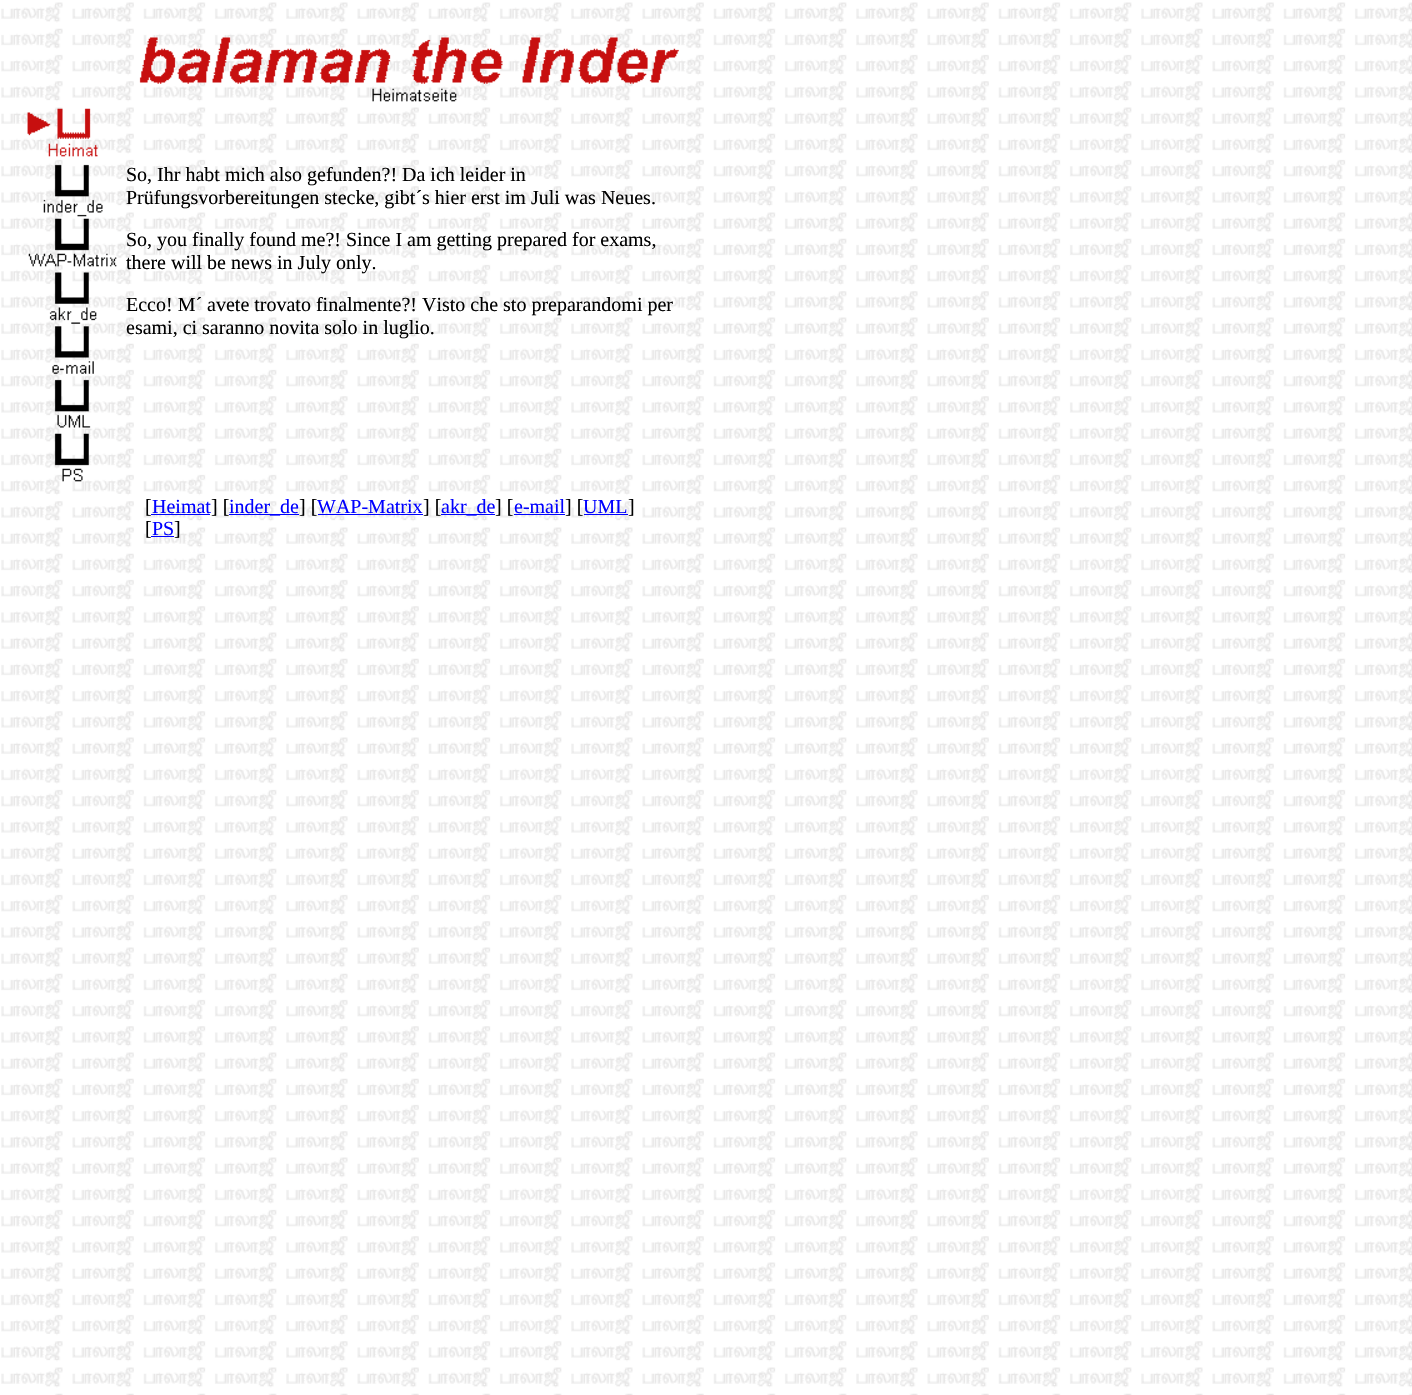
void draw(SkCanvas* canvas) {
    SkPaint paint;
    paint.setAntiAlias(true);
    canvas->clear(0xFFFFFFFF);
    canvas->drawImageRect(SkImages::DeferredFromEncodedData(SkData::MakeFromFileName("img1.png")), SkRect::MakeXYWH(1, 2, 1411, 1393), SkSamplingOptions());
    canvas->drawImageRect(SkImages::DeferredFromEncodedData(SkData::MakeFromFileName("img2.png")), SkRect::MakeXYWH(139, 37, 540, 65), SkSamplingOptions());
    canvas->drawImageRect(SkImages::DeferredFromEncodedData(SkData::MakeFromFileName("img3.png")), SkRect::MakeXYWH(27, 108, 71, 49), SkSamplingOptions());
    canvas->drawImageRect(SkImages::DeferredFromEncodedData(SkData::MakeFromFileName("img4.png")), SkRect::MakeXYWH(43, 164, 60, 53), SkSamplingOptions());
    SkFont font1(fontMgr->matchFamilyStyle("Liberation Serif", SkFontStyle::Normal()), 20);
    font1.setSubpixel(true);
    paint.setColor(0xFF000000);
    canvas->drawString("So, Ihr habt mich also gefunden?! Da ich leider in", 126, 181, font1, paint);
    canvas->drawString("Prüfungsvorbereitungen stecke, gibt´s hier erst im Juli was Neues.", 126, 204, font1, paint);
    canvas->drawString("So, you finally found me?! Since I am getting prepared for exams,", 126, 246, font1, paint);
    canvas->drawString("there will be news in July only.", 126, 269, font1, paint);
    canvas->drawString("Ecco! M´ avete trovato finalmente?! Visto che sto preparandomi per", 126, 311, font1, paint);
    canvas->drawString("esami, ci saranno novita solo in luglio.", 126, 334, font1, paint);
    canvas->drawImageRect(SkImages::DeferredFromEncodedData(SkData::MakeFromFileName("img5.png")), SkRect::MakeXYWH(28, 218, 89, 49), SkSamplingOptions());
    canvas->drawImageRect(SkImages::DeferredFromEncodedData(SkData::MakeFromFileName("img6.png")), SkRect::MakeXYWH(49, 272, 48, 52), SkSamplingOptions());
    canvas->drawImageRect(SkImages::DeferredFromEncodedData(SkData::MakeFromFileName("img7.png")), SkRect::MakeXYWH(52, 326, 42, 48), SkSamplingOptions());
    canvas->drawImageRect(SkImages::DeferredFromEncodedData(SkData::MakeFromFileName("img8.png")), SkRect::MakeXYWH(54, 379, 37, 49), SkSamplingOptions());
    canvas->drawImageRect(SkImages::DeferredFromEncodedData(SkData::MakeFromFileName("img9.png")), SkRect::MakeXYWH(54, 433, 35, 49), SkSamplingOptions());
    canvas->drawString("[", 145, 513, font1, paint);
    paint.setColor(0xFF0000FF);
    canvas->drawString("Heimat", 152, 513, font1, paint);
    canvas->drawRect(SkRect::MakeXYWH(151, 514, 59, 1), paint);
    paint.setColor(0xFF000000);
    canvas->drawString("] [", 211, 513, font1, paint);
    paint.setColor(0xFF0000FF);
    canvas->drawRect(SkRect::MakeXYWH(229, 514, 70, 1), paint);
    canvas->drawString("inder_de", 229, 513, font1, paint);
    paint.setColor(0xFF000000);
    canvas->drawString("] [", 299, 513, font1, paint);
    paint.setColor(0xFF0000FF);
    canvas->drawString("WAP-Matrix", 317, 513, font1, paint);
    canvas->drawRect(SkRect::MakeXYWH(318, 514, 105, 1), paint);
    paint.setColor(0xFF000000);
    canvas->drawString("] [", 423, 513, font1, paint);
    paint.setColor(0xFF0000FF);
    canvas->drawRect(SkRect::MakeXYWH(441, 514, 54, 1), paint);
    canvas->drawString("akr_de", 441, 513, font1, paint);
    paint.setColor(0xFF000000);
    canvas->drawString("] [", 495, 513, font1, paint);
    paint.setColor(0xFF0000FF);
    canvas->drawString("e-mail", 514, 513, font1, paint);
    canvas->drawRect(SkRect::MakeXYWH(514, 514, 51, 1), paint);
    paint.setColor(0xFF000000);
    canvas->drawString("] [", 565, 513, font1, paint);
    paint.setColor(0xFF0000FF);
    canvas->drawString("UML", 583, 513, font1, paint);
    canvas->drawRect(SkRect::MakeXYWH(584, 514, 44, 1), paint);
    paint.setColor(0xFF000000);
    canvas->drawString("]", 628, 513, font1, paint);
    canvas->drawString("[", 145, 535, font1, paint);
    paint.setColor(0xFF0000FF);
    canvas->drawString("PS", 152, 535, font1, paint);
    canvas->drawRect(SkRect::MakeXYWH(151, 536, 23, 1), paint);
    paint.setColor(0xFF000000);
    canvas->drawString("]", 174, 535, font1, paint);
}
